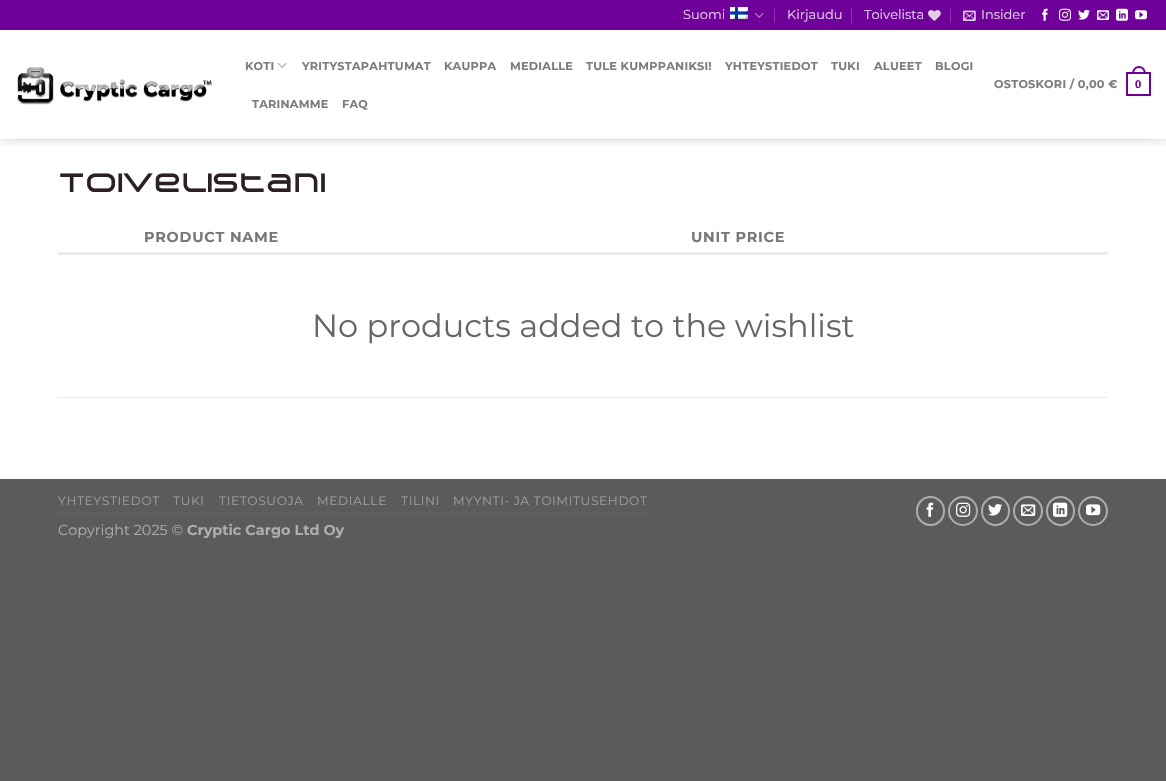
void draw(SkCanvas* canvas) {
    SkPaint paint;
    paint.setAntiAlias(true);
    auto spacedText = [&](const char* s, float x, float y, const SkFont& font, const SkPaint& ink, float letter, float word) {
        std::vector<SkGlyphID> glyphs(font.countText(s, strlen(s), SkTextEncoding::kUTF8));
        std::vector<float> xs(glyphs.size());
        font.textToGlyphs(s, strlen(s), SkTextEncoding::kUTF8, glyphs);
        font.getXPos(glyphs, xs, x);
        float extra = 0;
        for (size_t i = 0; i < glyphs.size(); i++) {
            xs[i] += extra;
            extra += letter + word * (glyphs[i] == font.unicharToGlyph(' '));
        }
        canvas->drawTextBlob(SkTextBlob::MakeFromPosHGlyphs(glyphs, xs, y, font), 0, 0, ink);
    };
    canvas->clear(0xFF5B5B5B);
    paint.setColor(0xFFFFFFFF);
    canvas->drawRect(SkRect::MakeXYWH(0, 30, 1166, 449), paint);
    canvas->save();
    canvas->clipRect(SkRect::MakeXYWH(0, 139, 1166, 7));
    paint.setColor(0x26000000);
    paint.setMaskFilter(SkMaskFilter::MakeBlur(kNormal_SkBlurStyle, 5));
    canvas->drawRect(SkRect::MakeXYWH(1, 1, 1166, 139), paint);
    paint.setMaskFilter(nullptr);
    canvas->restore();
    paint.setColor(0xFF6F0099);
    canvas->drawRect(SkRect::MakeXYWH(0, 0, 1166, 30), paint);
    SkFont font1(fontMgr->matchFamilyStyle("Montserrat", SkFontStyle::Normal()), 13);
    font1.setSubpixel(true);
    paint.setColor(0xFFE2CCEB);
    canvas->drawString("Suomi", 683, 19, font1, paint);
    canvas->drawImageRect(SkImages::DeferredFromEncodedData(SkData::MakeFromFileName("img1.png")), SkRect::MakeXYWH(730, 7, 18, 12), SkSamplingOptions());
    canvas->drawImageRect(SkImages::DeferredFromEncodedData(SkData::MakeFromFileName("img2.png")), SkRect::MakeXYWH(754, 12, 10, 6), SkSamplingOptions());
    paint.setColor(0xFF8C33AD);
    canvas->drawRect(SkRect::MakeXYWH(774, 8, 1, 15), paint);
    paint.setColor(0xFFE2CCEB);
    canvas->drawString("Kirjaudu", 787, 19, font1, paint);
    paint.setColor(0xFF8C33AD);
    canvas->drawRect(SkRect::MakeXYWH(851, 8, 1, 15), paint);
    paint.setColor(0xFFE2CCEB);
    canvas->drawString("Toivelista", 864, 19, font1, paint);
    canvas->drawImageRect(SkImages::DeferredFromEncodedData(SkData::MakeFromFileName("img3.png")), SkRect::MakeXYWH(928, 10, 13, 11), SkSamplingOptions());
    paint.setColor(0xFF8C33AD);
    canvas->drawRect(SkRect::MakeXYWH(950, 8, 1, 15), paint);
    canvas->drawImageRect(SkImages::DeferredFromEncodedData(SkData::MakeFromFileName("img4.png")), SkRect::MakeXYWH(963, 10, 13, 11), SkSamplingOptions());
    paint.setColor(0xFFE2CCEB);
    canvas->drawString("Insider", 981, 19, font1, paint);
    canvas->drawImageRect(SkImages::DeferredFromEncodedData(SkData::MakeFromFileName("img5.png")), SkRect::MakeXYWH(1042, 8, 6, 13), SkSamplingOptions());
    canvas->drawImageRect(SkImages::DeferredFromEncodedData(SkData::MakeFromFileName("img6.png")), SkRect::MakeXYWH(1059, 8, 12, 13), SkSamplingOptions());
    canvas->drawImageRect(SkImages::DeferredFromEncodedData(SkData::MakeFromFileName("img7.png")), SkRect::MakeXYWH(1078, 9, 12, 11), SkSamplingOptions());
    canvas->drawImageRect(SkImages::DeferredFromEncodedData(SkData::MakeFromFileName("img8.png")), SkRect::MakeXYWH(1097, 10, 12, 10), SkSamplingOptions());
    canvas->drawImageRect(SkImages::DeferredFromEncodedData(SkData::MakeFromFileName("img9.png")), SkRect::MakeXYWH(1116, 8, 12, 13), SkSamplingOptions());
    canvas->drawImageRect(SkImages::DeferredFromEncodedData(SkData::MakeFromFileName("img10.png")), SkRect::MakeXYWH(1135, 10, 12, 10), SkSamplingOptions());
    canvas->drawImageRect(SkImages::DeferredFromEncodedData(SkData::MakeFromFileName("img11.png")), SkRect::MakeXYWH(17, 67, 195, 38), SkSamplingOptions());
    SkFont font2(fontMgr->matchFamilyStyle("Montserrat", SkFontStyle::Bold()), 11.25f);
    font2.setSubpixel(true);
    paint.setColor(0xFF7D7D7D);
    spacedText("KOTI", 245, 70, font2, paint, 0.25f, 0);
    canvas->drawImageRect(SkImages::DeferredFromEncodedData(SkData::MakeFromFileName("img12.png")), SkRect::MakeXYWH(277, 62, 10, 6), SkSamplingOptions());
    spacedText("YRITYSTAPAHTUMAT", 302, 70, font2, paint, 0.25f, 0);
    spacedText("KAUPPA", 444, 70, font2, paint, 0.25f, 0);
    spacedText("MEDIALLE", 510, 70, font2, paint, 0.25f, 0);
    spacedText("TULE KUMPPANIKSI!", 586, 70, font2, paint, 0.25f, 0);
    spacedText("YHTEYSTIEDOT", 725, 70, font2, paint, 0.25f, 0);
    spacedText("TUKI", 831, 70, font2, paint, 0.25f, 0);
    spacedText("ALUEET", 874, 70, font2, paint, 0.25f, 0);
    spacedText("BLOGI", 935, 70, font2, paint, 0.25f, 0);
    spacedText("TARINAMME", 252, 108, font2, paint, 0.25f, 0);
    spacedText("FAQ", 342, 108, font2, paint, 0.25f, 0);
    spacedText("OSTOSKORI / 0,00 €", 994, 88, font2, paint, 0.25f, 0);
    paint.setStyle(SkPaint::kStroke_Style);
    paint.setStrokeWidth(2);
    paint.setColor(0xFF6F0099);
    canvas->drawRect(SkRect::MakeXYWH(1127, 73, 23, 22), paint);
    paint.setStyle(SkPaint::kFill_Style);
    canvas->drawPath(SkPathBuilder(SkPathFillType::kEvenOdd).moveTo(1139, 66).cubicTo(1143.5f, 66, 1146, 70, 1146, 74).lineTo(1132, 74).cubicTo(1132, 70, 1134.5f, 66, 1139, 66).close().moveTo(1139, 68).cubicTo(1142.5f, 68, 1144, 71, 1144, 74).lineTo(1134, 74).cubicTo(1134, 71, 1135.5f, 68, 1139, 68).close().detach(), paint);
    SkFont font3(fontMgr->matchFamilyStyle("Liberation Sans", SkFontStyle::Bold()), 11.25f);
    font3.setSubpixel(true);
    spacedText("0", 1135, 88, font3, paint, 0.25f, 0);
    paint.setColor(0xFFDFDFDF);
    canvas->drawRect(SkRect::MakeXYWH(15, 139, 1136, 1), paint);
    SkFont font4(fontMgr->matchFamilyStyle("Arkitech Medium", SkFontStyle::Bold()), 25.6f);
    font4.setSubpixel(true);
    paint.setColor(0xFF2B2121);
    canvas->drawString("Toivelistani", 58, 192, font4, paint);
    SkFont font5(fontMgr->matchFamilyStyle("Montserrat", SkFontStyle::Bold()), 14.4f);
    font5.setSubpixel(true);
    paint.setColor(0xFF777777);
    spacedText("PRODUCT NAME", 144, 242, font5, paint, 0.75f, 0);
    spacedText("UNIT PRICE", 691, 242, font5, paint, 0.75f, 0);
    paint.setColor(0xFFECECEC);
    canvas->drawRect(SkRect::MakeXYWH(58, 252, 1050, 3), paint);
    canvas->drawRect(SkRect::MakeXYWH(58, 397, 1050, 1), paint);
    SkFont font6(fontMgr->matchFamilyStyle("Montserrat", SkFontStyle::Normal()), 32);
    font6.setSubpixel(true);
    paint.setColor(0xFF666666);
    canvas->drawString("No products added to the wishlist", 312, 337, font6, paint);
    paint.setColor(0xFF656565);
    canvas->drawRect(SkRect::MakeXYWH(58, 513, 590, 1), paint);
    SkFont font7(fontMgr->matchFamilyStyle("Montserrat", SkFontStyle::Normal()), 12.25f);
    font7.setSubpixel(true);
    paint.setColor(0xFF9D9D9D);
    spacedText("YHTEYSTIEDOT", 58, 505, font7, paint, 0.6f, 0);
    spacedText("TUKI", 173, 505, font7, paint, 0.6f, 0);
    spacedText("TIETOSUOJA", 219, 505, font7, paint, 0.6f, 0);
    spacedText("MEDIALLE", 317, 505, font7, paint, 0.6f, 0);
    spacedText("TILINI", 401, 505, font7, paint, 0.6f, 0);
    spacedText("MYYNTI- JA TOIMITUSEHDOT", 453, 505, font7, paint, 0.6f, 0);
    SkFont font8(fontMgr->matchFamilyStyle("Montserrat", SkFontStyle::Normal()), 14.4f);
    font8.setSubpixel(true);
    paint.setColor(0xFFADADAD);
    canvas->drawString("Copyright 2025 ©", 58, 535, font8, paint);
    canvas->drawString("Cryptic Cargo Ltd Oy", 187, 535, font5, paint);
    paint.setStyle(SkPaint::kStroke_Style);
    canvas->drawRoundRect(SkRect::MakeXYWH(917, 497, 27, 28), 13.5f, 13.5f, paint);
    canvas->drawImageRect(SkImages::DeferredFromEncodedData(SkData::MakeFromFileName("img13.png")), SkRect::MakeXYWH(926, 502, 8, 15), SkSamplingOptions());
    canvas->drawCircle(963, 511, 14, paint);
    canvas->drawImageRect(SkImages::DeferredFromEncodedData(SkData::MakeFromFileName("img14.png")), SkRect::MakeXYWH(956, 502, 15, 15), SkSamplingOptions());
    canvas->drawRoundRect(SkRect::MakeXYWH(982, 497, 27, 28), 13.5f, 13.5f, paint);
    canvas->drawImageRect(SkImages::DeferredFromEncodedData(SkData::MakeFromFileName("img15.png")), SkRect::MakeXYWH(988, 504, 15, 12), SkSamplingOptions());
    canvas->drawCircle(1028, 511, 14, paint);
    canvas->drawImageRect(SkImages::DeferredFromEncodedData(SkData::MakeFromFileName("img16.png")), SkRect::MakeXYWH(1021, 504, 15, 12), SkSamplingOptions());
    canvas->drawRoundRect(SkRect::MakeXYWH(1047, 497, 27, 28), 13.5f, 13.5f, paint);
    canvas->drawImageRect(SkImages::DeferredFromEncodedData(SkData::MakeFromFileName("img17.png")), SkRect::MakeXYWH(1053, 502, 15, 15), SkSamplingOptions());
    canvas->drawCircle(1093, 511, 14, paint);
    canvas->drawImageRect(SkImages::DeferredFromEncodedData(SkData::MakeFromFileName("img18.png")), SkRect::MakeXYWH(1086, 504, 15, 12), SkSamplingOptions());
}
